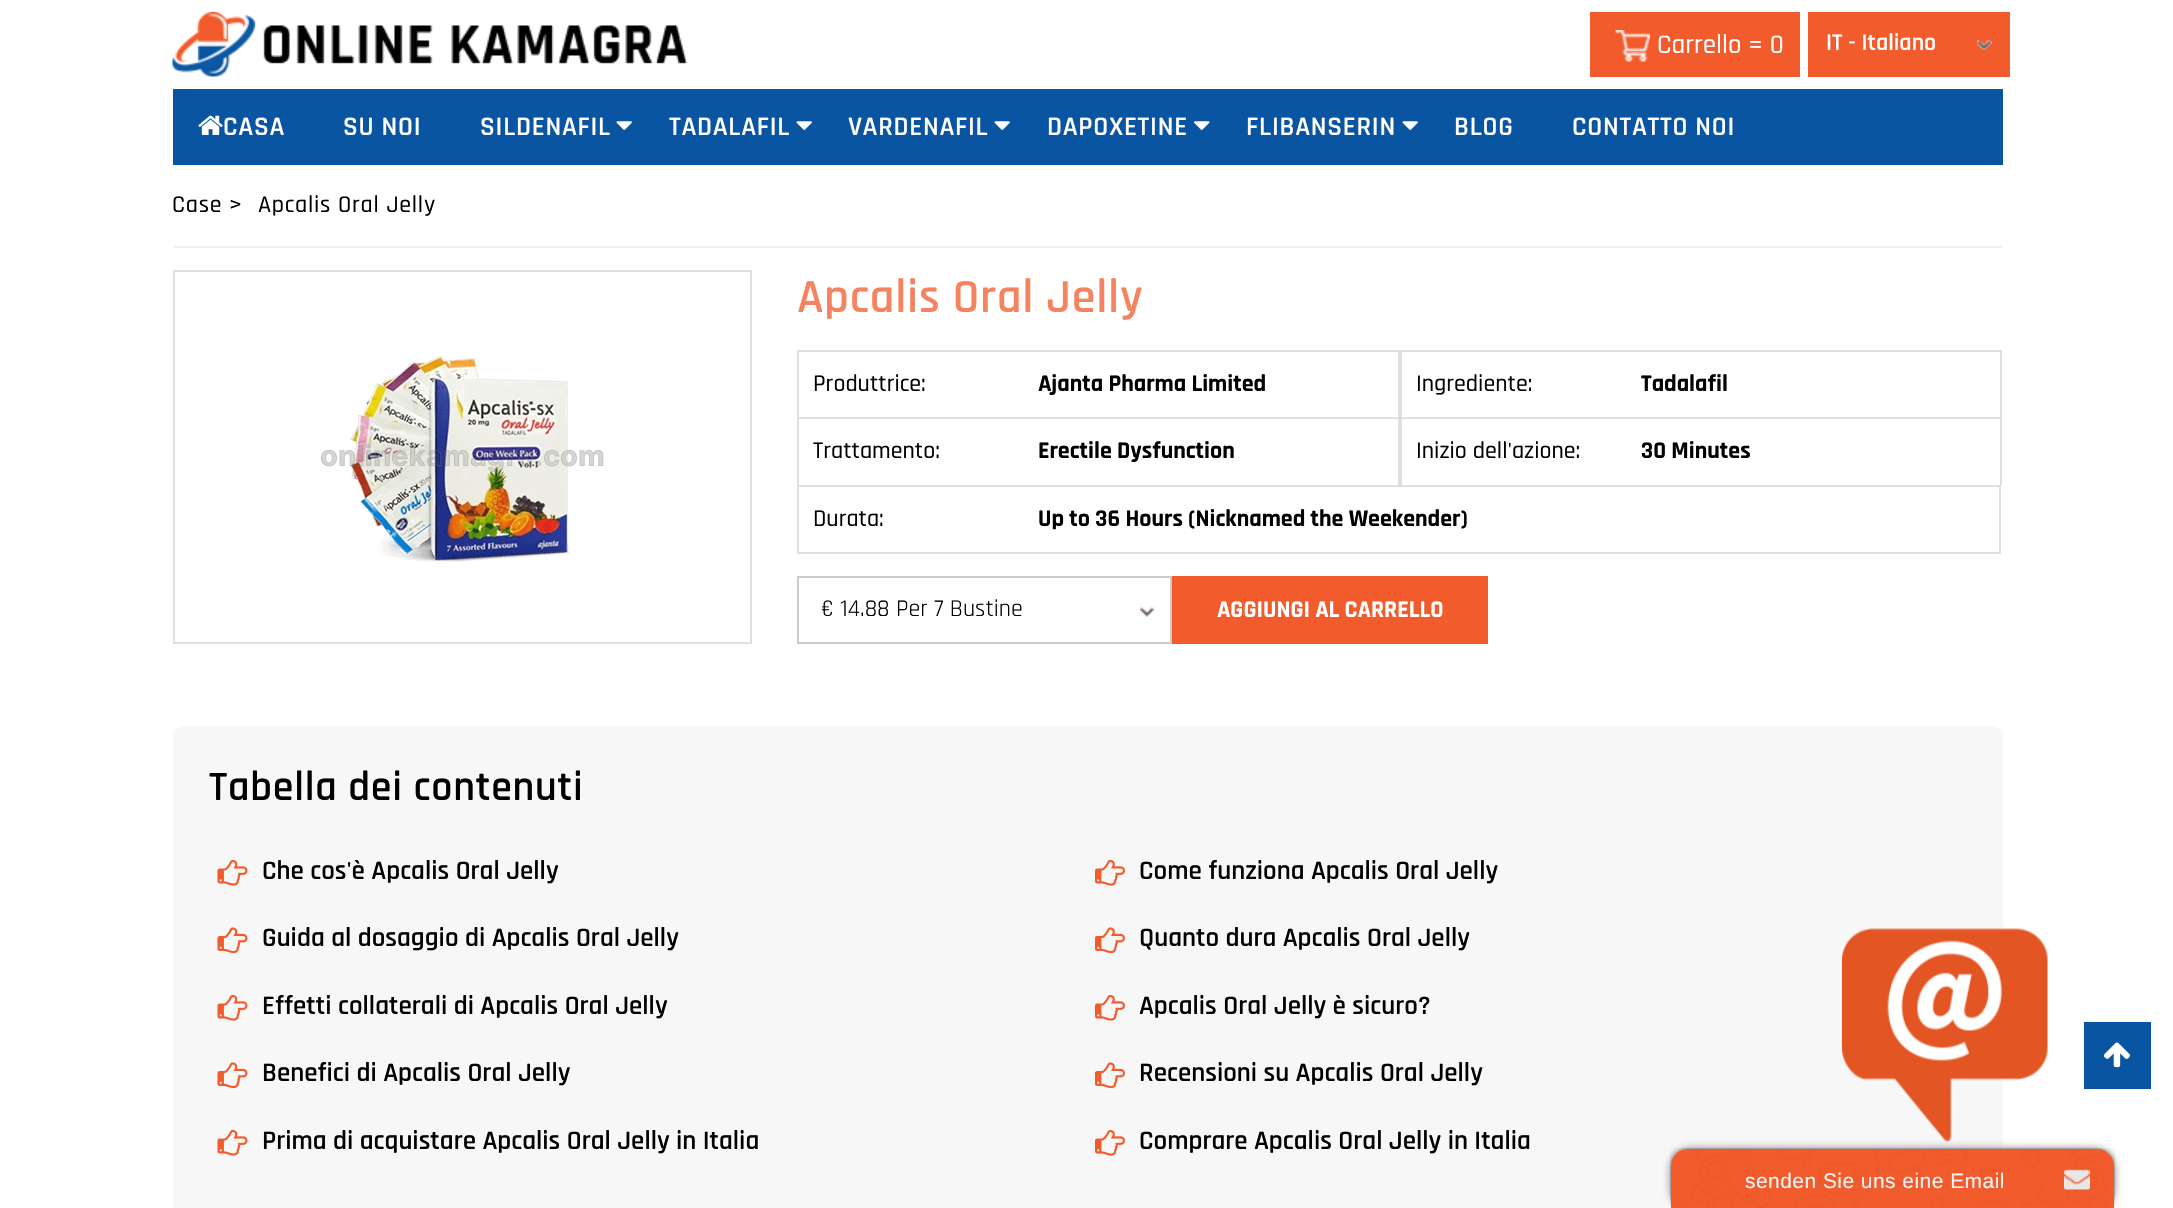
void draw(SkCanvas* canvas) {
    SkPaint paint;
    paint.setAntiAlias(true);
    auto spacedText = [&](const char* s, float x, float y, const SkFont& font, const SkPaint& ink, float letter, float word) {
        std::vector<SkGlyphID> glyphs(font.countText(s, strlen(s), SkTextEncoding::kUTF8));
        std::vector<float> xs(glyphs.size());
        font.textToGlyphs(s, strlen(s), SkTextEncoding::kUTF8, glyphs);
        font.getXPos(glyphs, xs, x);
        float extra = 0;
        for (size_t i = 0; i < glyphs.size(); i++) {
            xs[i] += extra;
            extra += letter + word * (glyphs[i] == font.unicharToGlyph(' '));
        }
        canvas->drawTextBlob(SkTextBlob::MakeFromPosHGlyphs(glyphs, xs, y, font), 0, 0, ink);
    };
    canvas->clear(0xFFFFFFFF);
    canvas->drawImageRect(SkImages::DeferredFromEncodedData(SkData::MakeFromFileName("img1.png")), SkRect::MakeXYWH(172, 12, 516, 65), SkSamplingOptions());
    paint.setColor(0xFFF25B2C);
    canvas->drawRect(SkRect::MakeXYWH(1590, 12, 210, 65), paint);
    canvas->drawImageRect(SkImages::DeferredFromEncodedData(SkData::MakeFromFileName("img2.png")), SkRect::MakeXYWH(1615, 30, 35, 32), SkSamplingOptions());
    SkFont font1(fontMgr->matchFamilyStyle("Rajdhani", SkFontStyle(500, SkFontStyle::kNormal_Width, SkFontStyle::kUpright_Slant)), 27);
    font1.setSubpixel(true);
    paint.setColor(0xFFFFFFFF);
    canvas->drawString("Carrello = 0", 1657, 53, font1, paint);
    paint.setColor(0xFFF25B2C);
    canvas->drawRect(SkRect::MakeXYWH(1808, 12, 202, 65), paint);
    canvas->drawImageRect(SkImages::DeferredFromEncodedData(SkData::MakeFromFileName("img3.png")), SkRect::MakeXYWH(1977, 40, 15, 10), SkSamplingOptions());
    SkFont font2(fontMgr->matchFamilyStyle("Rajdhani", SkFontStyle(600, SkFontStyle::kNormal_Width, SkFontStyle::kUpright_Slant)), 24);
    font2.setSubpixel(true);
    paint.setColor(0xFFFFFFFF);
    canvas->drawString("IT - Italiano", 1826, 50, font2, paint);
    paint.setColor(0xFF0955A1);
    canvas->drawRect(SkRect::MakeXYWH(173, 89, 1830, 76), paint);
    canvas->drawImageRect(SkImages::DeferredFromEncodedData(SkData::MakeFromFileName("img4.png")), SkRect::MakeXYWH(198, 115, 25, 20), SkSamplingOptions());
    SkFont font3(fontMgr->matchFamilyStyle("Rajdhani", SkFontStyle(600, SkFontStyle::kNormal_Width, SkFontStyle::kUpright_Slant)), 27);
    font3.setSubpixel(true);
    paint.setColor(0xFFFFFFFF);
    spacedText("CASA", 223, 135, font3, paint, 0.75f, 0);
    spacedText("SU NOI", 343, 135, font3, paint, 0.75f, 0);
    spacedText("SILDENAFIL", 480, 135, font3, paint, 0.75f, 0);
    canvas->drawImageRect(SkImages::DeferredFromEncodedData(SkData::MakeFromFileName("img5.png")), SkRect::MakeXYWH(616, 121, 16, 9), SkSamplingOptions());
    spacedText("TADALAFIL", 669, 135, font3, paint, 0.75f, 0);
    canvas->drawImageRect(SkImages::DeferredFromEncodedData(SkData::MakeFromFileName("img5.png")), SkRect::MakeXYWH(796, 121, 16, 9), SkSamplingOptions());
    spacedText("VARDENAFIL", 848, 135, font3, paint, 0.75f, 0);
    canvas->drawImageRect(SkImages::DeferredFromEncodedData(SkData::MakeFromFileName("img5.png")), SkRect::MakeXYWH(994, 121, 16, 9), SkSamplingOptions());
    spacedText("DAPOXETINE", 1047, 135, font3, paint, 0.75f, 0);
    canvas->drawImageRect(SkImages::DeferredFromEncodedData(SkData::MakeFromFileName("img6.png")), SkRect::MakeXYWH(1194, 121, 16, 9), SkSamplingOptions());
    spacedText("FLIBANSERIN", 1246, 135, font3, paint, 0.75f, 0);
    canvas->drawImageRect(SkImages::DeferredFromEncodedData(SkData::MakeFromFileName("img5.png")), SkRect::MakeXYWH(1402, 121, 16, 9), SkSamplingOptions());
    spacedText("BLOG", 1454, 135, font3, paint, 0.75f, 0);
    spacedText("CONTATTO NOI", 1572, 135, font3, paint, 0.75f, 0);
    paint.setColor(0xFFF1F1F1);
    canvas->drawRect(SkRect::MakeXYWH(173, 246, 1830, 2), paint);
    SkFont font4(fontMgr->matchFamilyStyle("Rajdhani", SkFontStyle(500, SkFontStyle::kNormal_Width, SkFontStyle::kUpright_Slant)), 24);
    font4.setSubpixel(true);
    paint.setColor(0xFF000000);
    spacedText("Case", 172, 212, font4, paint, 0.75f, 0);
    spacedText(">", 229, 212, font4, paint, 0.75f, 0);
    spacedText("Apcalis Oral Jelly", 258, 212, font4, paint, 0.75f, 0);
    paint.setStyle(SkPaint::kStroke_Style);
    paint.setStrokeWidth(2);
    paint.setColor(0xFFDFDFDF);
    canvas->drawRect(SkRect::MakeXYWH(174, 271, 577, 372), paint);
    canvas->drawImageRect(SkImages::DeferredFromEncodedData(SkData::MakeFromFileName("img7.png")), SkRect::MakeXYWH(321, 356, 283, 206), SkSamplingOptions());
    SkFont font5(fontMgr->matchFamilyStyle("Rajdhani", SkFontStyle(600, SkFontStyle::kNormal_Width, SkFontStyle::kUpright_Slant)), 48);
    font5.setSubpixel(true);
    paint.setStyle(SkPaint::kFill_Style);
    paint.setColor(0xFFF5835F);
    spacedText("Apcalis Oral Jelly", 797, 312, font5, paint, 0.75f, 0);
    paint.setColor(0xFFDFDFDF);
    canvas->drawRect(SkRect::MakeXYWH(797, 350, 1204, 2), paint);
    canvas->drawRect(SkRect::MakeXYWH(1398, 350, 4, 67), paint);
    canvas->drawRect(SkRect::MakeXYWH(797, 350, 2, 67), paint);
    paint.setColor(0xFF000000);
    canvas->drawString("Produttrice:", 813, 391, font4, paint);
    SkFont font6(fontMgr->matchFamilyStyle("Rajdhani", SkFontStyle::Bold()), 24);
    font6.setSubpixel(true);
    canvas->drawString("Ajanta Pharma Limited", 1038, 391, font6, paint);
    paint.setColor(0xFFDFDFDF);
    canvas->drawRect(SkRect::MakeXYWH(2000, 350, 2, 67), paint);
    paint.setColor(0xFF000000);
    canvas->drawString("Ingrediente:", 1416, 391, font4, paint);
    canvas->drawString("Tadalafil", 1641, 391, font6, paint);
    paint.setColor(0xFFDFDFDF);
    canvas->drawRect(SkRect::MakeXYWH(797, 417, 1204, 2), paint);
    canvas->drawRect(SkRect::MakeXYWH(1398, 417, 4, 68), paint);
    canvas->drawRect(SkRect::MakeXYWH(797, 417, 2, 68), paint);
    paint.setColor(0xFF000000);
    canvas->drawString("Trattamento:", 813, 458, font4, paint);
    canvas->drawString("Erectile Dysfunction", 1038, 458, font6, paint);
    paint.setColor(0xFFDFDFDF);
    canvas->drawRect(SkRect::MakeXYWH(2000, 417, 2, 68), paint);
    paint.setColor(0xFF000000);
    canvas->drawString("Inizio dell'azione:", 1416, 458, font4, paint);
    canvas->drawString("30 Minutes", 1641, 458, font6, paint);
    paint.setStyle(SkPaint::kStroke_Style);
    paint.setColor(0xFFDFDFDF);
    canvas->drawRect(SkRect::MakeXYWH(798, 486, 1202, 67), paint);
    paint.setStyle(SkPaint::kFill_Style);
    paint.setColor(0xFF000000);
    canvas->drawString("Durata:", 813, 526, font4, paint);
    canvas->drawString("Up to 36 Hours (Nicknamed the Weekender)", 1038, 526, font6, paint);
    canvas->drawImageRect(SkImages::DeferredFromEncodedData(SkData::MakeFromFileName("img8.png")), SkRect::MakeXYWH(1140, 607, 15, 10), SkSamplingOptions());
    paint.setStyle(SkPaint::kStroke_Style);
    paint.setColor(0xFFCCCCCC);
    canvas->drawRect(SkRect::MakeXYWH(798, 577, 373, 66), paint);
    SkFont font7(fontMgr->matchFamilyStyle("Rajdhani", SkFontStyle::Normal()), 24);
    font7.setSubpixel(true);
    paint.setStyle(SkPaint::kFill_Style);
    paint.setColor(0xFF000000);
    canvas->drawString("€ 14.88 Per 7 Bustine", 821, 616, font7, paint);
    paint.setColor(0xFFF25B2C);
    canvas->drawRect(SkRect::MakeXYWH(1172, 576, 316, 68), paint);
    paint.setColor(0xFFFFFFFF);
    canvas->drawString("AGGIUNGI AL CARRELLO", 1217, 617, font6, paint);
    paint.setColor(0xFFF7F7F7);
    canvas->drawRoundRect(SkRect::MakeXYWH(173, 726, 1830, 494), 12, 12, paint);
    SkFont font8(fontMgr->matchFamilyStyle("Rajdhani", SkFontStyle(600, SkFontStyle::kNormal_Width, SkFontStyle::kUpright_Slant)), 42);
    font8.setSubpixel(true);
    paint.setColor(0xFF000000);
    spacedText("Tabella dei contenuti", 209, 800, font8, paint, 0.75f, 0);
    canvas->drawImageRect(SkImages::DeferredFromEncodedData(SkData::MakeFromFileName("img9.png")), SkRect::MakeXYWH(217, 859, 31, 27), SkSamplingOptions());
    canvas->drawString("Che cos'è Apcalis Oral Jelly", 262, 879, font3, paint);
    canvas->drawImageRect(SkImages::DeferredFromEncodedData(SkData::MakeFromFileName("img10.png")), SkRect::MakeXYWH(1095, 859, 30, 27), SkSamplingOptions());
    canvas->drawString("Come funziona Apcalis Oral Jelly", 1139, 879, font3, paint);
    canvas->drawImageRect(SkImages::DeferredFromEncodedData(SkData::MakeFromFileName("img11.png")), SkRect::MakeXYWH(217, 927, 31, 27), SkSamplingOptions());
    canvas->drawString("Guida al dosaggio di Apcalis Oral Jelly", 262, 946, font3, paint);
    canvas->drawImageRect(SkImages::DeferredFromEncodedData(SkData::MakeFromFileName("img12.png")), SkRect::MakeXYWH(1095, 927, 30, 27), SkSamplingOptions());
    canvas->drawString("Quanto dura Apcalis Oral Jelly", 1139, 946, font3, paint);
    canvas->drawImageRect(SkImages::DeferredFromEncodedData(SkData::MakeFromFileName("img9.png")), SkRect::MakeXYWH(217, 994, 31, 27), SkSamplingOptions());
    canvas->drawString("Effetti collaterali di Apcalis Oral Jelly", 262, 1014, font3, paint);
    canvas->drawImageRect(SkImages::DeferredFromEncodedData(SkData::MakeFromFileName("img10.png")), SkRect::MakeXYWH(1095, 994, 30, 27), SkSamplingOptions());
    canvas->drawString("Apcalis Oral Jelly è sicuro?", 1139, 1014, font3, paint);
    canvas->drawImageRect(SkImages::DeferredFromEncodedData(SkData::MakeFromFileName("img11.png")), SkRect::MakeXYWH(217, 1062, 31, 27), SkSamplingOptions());
    canvas->drawString("Benefici di Apcalis Oral Jelly", 262, 1081, font3, paint);
    canvas->drawImageRect(SkImages::DeferredFromEncodedData(SkData::MakeFromFileName("img12.png")), SkRect::MakeXYWH(1095, 1062, 30, 27), SkSamplingOptions());
    canvas->drawString("Recensioni su Apcalis Oral Jelly", 1139, 1081, font3, paint);
    canvas->drawImageRect(SkImages::DeferredFromEncodedData(SkData::MakeFromFileName("img9.png")), SkRect::MakeXYWH(217, 1129, 31, 27), SkSamplingOptions());
    canvas->drawString("Prima di acquistare Apcalis Oral Jelly in Italia", 262, 1149, font3, paint);
    canvas->drawImageRect(SkImages::DeferredFromEncodedData(SkData::MakeFromFileName("img10.png")), SkRect::MakeXYWH(1095, 1129, 30, 27), SkSamplingOptions());
    canvas->drawString("Comprare Apcalis Oral Jelly in Italia", 1139, 1149, font3, paint);
    paint.setColor(0xFF0955A1);
    canvas->drawRect(SkRect::MakeXYWH(2084, 1022, 67, 67), paint);
    canvas->drawImageRect(SkImages::DeferredFromEncodedData(SkData::MakeFromFileName("img13.png")), SkRect::MakeXYWH(2103, 1042, 27, 26), SkSamplingOptions());
    canvas->drawImageRect(SkImages::DeferredFromEncodedData(SkData::MakeFromFileName("img14.png")), SkRect::MakeXYWH(1842, 928, 206, 214), SkSamplingOptions());
    paint.setColor(0xFF777777);
    paint.setMaskFilter(SkMaskFilter::MakeBlur(kNormal_SkBlurStyle, 4));
    canvas->drawRoundRect(SkRect::MakeXYWH(1671, 1149, 443, 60), 20, 20, paint);
    paint.setMaskFilter(nullptr);
    canvas->drawImageRect(SkImages::DeferredFromEncodedData(SkData::MakeFromFileName("img15.png")), SkRect::MakeXYWH(1670, 1148, 445, 60), SkSamplingOptions());
    paint.setColor(0xFFF25B2C);
    canvas->drawPath(SkPathBuilder().moveTo(1688, 1149).lineTo(2097, 1149).cubicTo(2106.5f, 1149, 2114, 1156.5f, 2114, 1166).lineTo(2114, 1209).lineTo(1671, 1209).lineTo(1671, 1166).cubicTo(1671, 1156.5f, 1678.5f, 1149, 1688, 1149).close().detach(), paint);
    canvas->drawImageRect(SkImages::DeferredFromEncodedData(SkData::MakeFromFileName("img16.png")), SkRect::MakeXYWH(1676, 1149, 431, 59), SkSamplingOptions());
    SkFont font9(fontMgr->matchFamilyStyle("Liberation Sans", SkFontStyle::Normal()), 21);
    font9.setSubpixel(true);
    paint.setColor(0xFFF1F1F1);
    spacedText("senden Sie uns eine Email", 1745, 1188, font9, paint, 0.45f, 0);
    canvas->drawImageRect(SkImages::DeferredFromEncodedData(SkData::MakeFromFileName("img17.png")), SkRect::MakeXYWH(2064, 1169, 26, 21), SkSamplingOptions());
}
